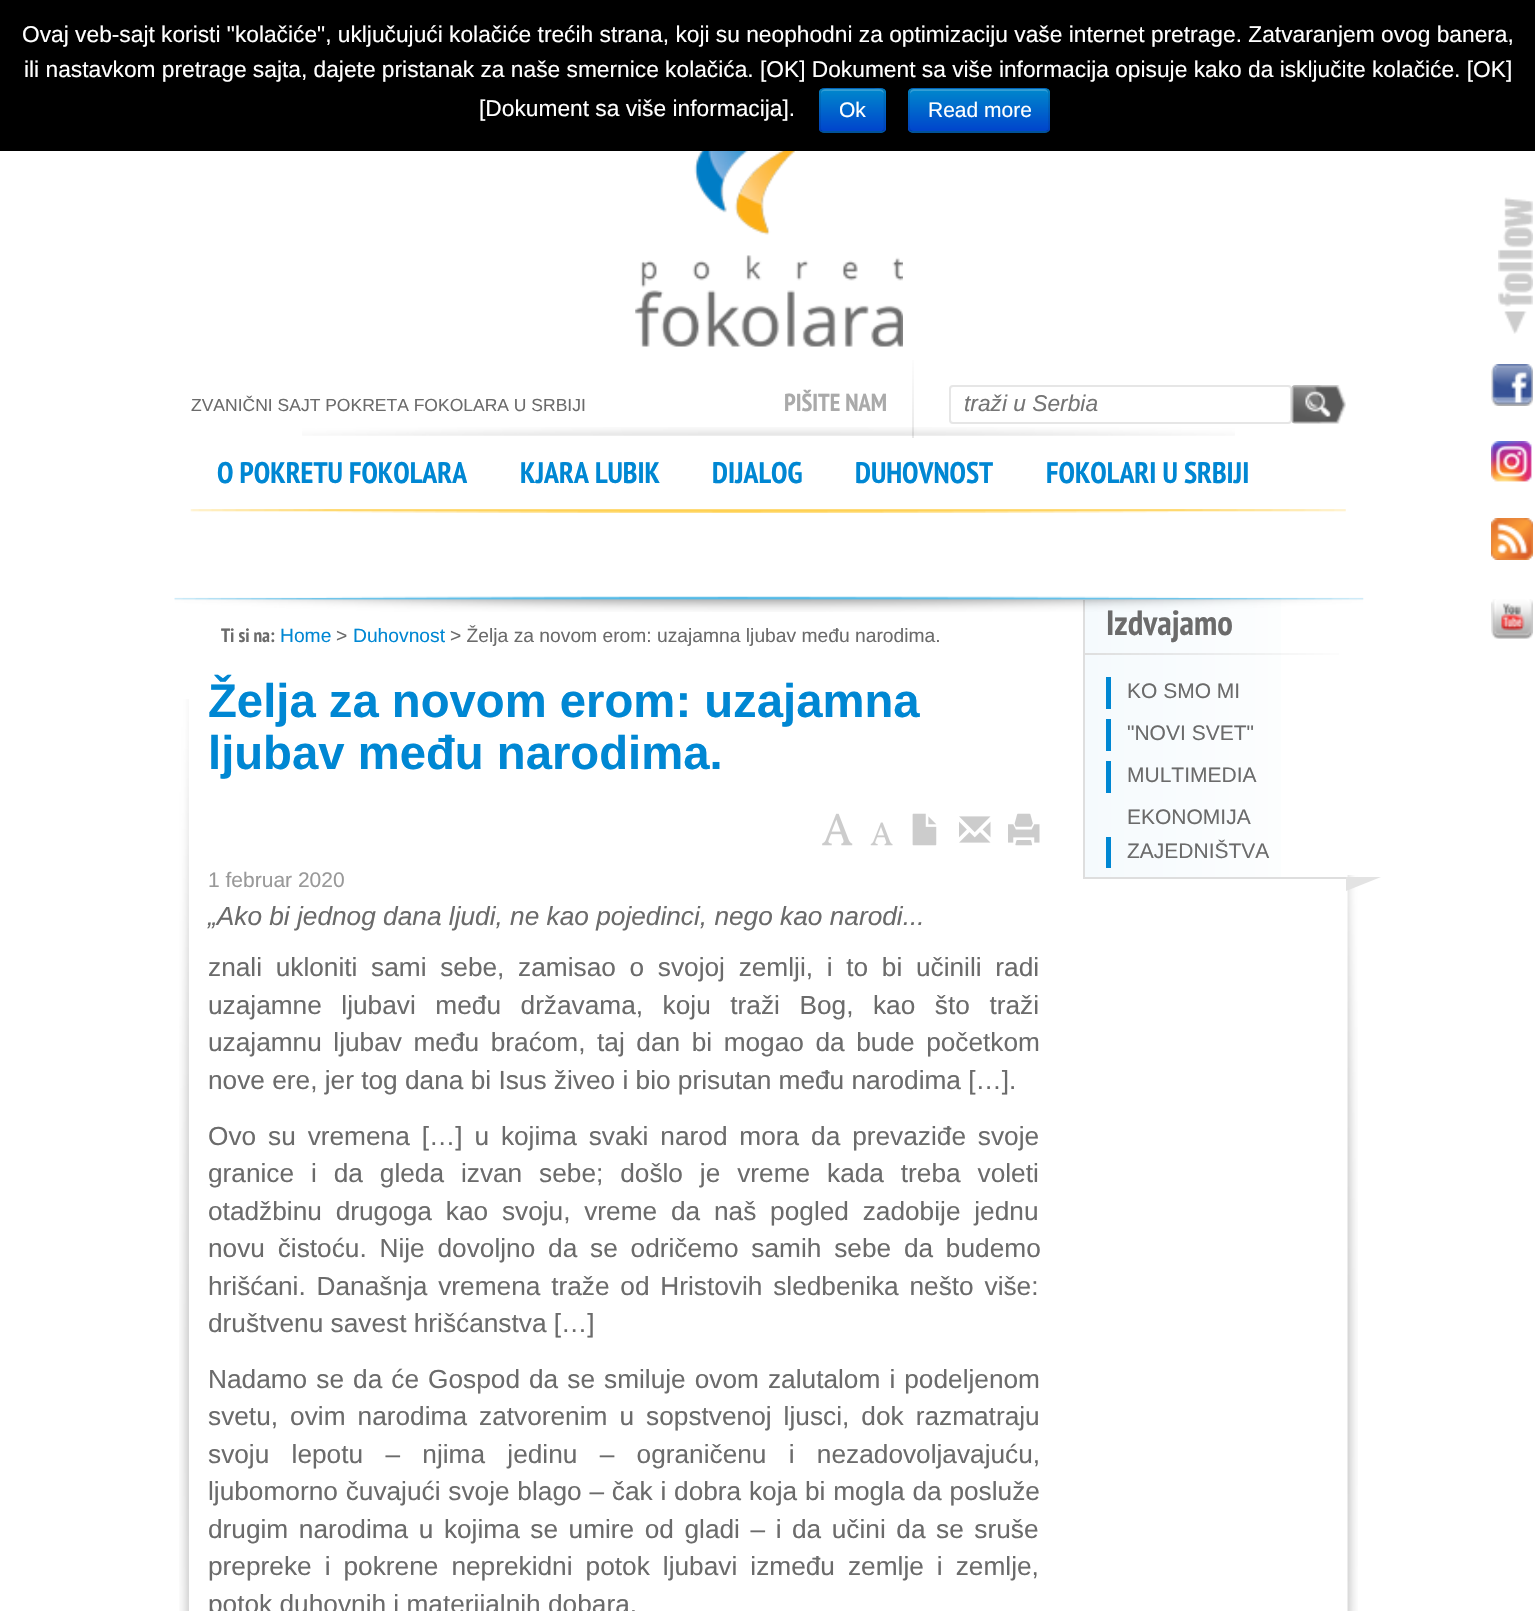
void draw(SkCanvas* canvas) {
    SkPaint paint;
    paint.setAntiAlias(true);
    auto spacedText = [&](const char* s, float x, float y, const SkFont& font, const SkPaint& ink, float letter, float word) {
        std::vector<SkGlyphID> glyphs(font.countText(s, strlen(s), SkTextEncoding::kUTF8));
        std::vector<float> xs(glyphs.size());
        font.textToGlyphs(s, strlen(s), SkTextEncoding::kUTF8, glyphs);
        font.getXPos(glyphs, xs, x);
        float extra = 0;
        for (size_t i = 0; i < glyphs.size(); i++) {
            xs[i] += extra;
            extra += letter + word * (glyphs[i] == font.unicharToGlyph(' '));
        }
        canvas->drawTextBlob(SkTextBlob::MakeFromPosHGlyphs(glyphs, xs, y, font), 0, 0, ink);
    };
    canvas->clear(0xFFFFFFFF);
    paint.setColor(0xFF000000);
    canvas->drawRect(SkRect::MakeXYWH(0, 0, 1535, 151), paint);
    SkFont font1(fontMgr->matchFamilyStyle("Liberation Sans", SkFontStyle::Normal()), 22.75f);
    font1.setSubpixel(true);
    paint.setColor(0xFFFFFFFF);
    canvas->drawString("Ovaj veb-sajt koristi \"kolačiće\", uključujući kolačiće trećih strana, koji su neophodni za optimizaciju vaše internet pretrage. Zatvaranjem ovog banera,", 22, 42, font1, paint);
    canvas->drawString("ili nastavkom pretrage sajta, dajete pristanak za naše smernice kolačića. [OK] Dokument sa više informacija opisuje kako da isključite kolačiće. [OK]", 24, 77, font1, paint);
    canvas->drawString("[Dokument sa više informacija].", 479, 116, font1, paint);
    paint.setColor(0xFF006DCC);
    canvas->drawRoundRect(SkRect::MakeXYWH(819, 88, 67, 45), 5, 5, paint);
    canvas->save();
    canvas->clipPath(SkPathBuilder().moveTo(824, 88).lineTo(881, 88).cubicTo(884, 88, 886, 90, 886, 93).lineTo(886, 128).cubicTo(886, 131, 884, 133, 881, 133).lineTo(824, 133).cubicTo(821, 133, 819, 131, 819, 128).lineTo(819, 93).cubicTo(819, 90, 821, 88, 824, 88).close().detach(), true);
    {
        const SkColor colors[] = {0xFF0088CC, 0xFF0044CC};
        const float stops[] = {0, 1};
        const SkPoint ends[] = {{852, 89}, {852, 131}};
        paint.setShader(SkGradientShader::MakeLinear(ends, colors, stops, 2, SkTileMode::kClamp));
        paint.setAlpha(255);
    }
    canvas->drawRect(SkRect::MakeXYWH(819, 89, 67, 42), paint);
    canvas->restore();
    paint.setShader(nullptr);
    paint.setColor(0x33FFFFFF);
    canvas->drawPath(SkPathBuilder().moveTo(824, 91).lineTo(880, 91).cubicTo(882, 91, 884, 93, 884, 94).cubicTo(884, 87, 876, 89, 871, 89).lineTo(834, 89).cubicTo(829, 89, 821, 87, 821, 94).cubicTo(821, 93, 822, 91, 824, 91).close().detach(), paint);
    paint.setStyle(SkPaint::kStroke_Style);
    paint.setStrokeWidth(1.8f);
    paint.setColor(0x40000000);
    canvas->drawPath(SkPathBuilder().moveTo(883.5f, 131).cubicTo(882.5f, 131.5f, 881.5f, 132, 880, 132).lineTo(824, 132).cubicTo(823, 132, 822, 131.5f, 821, 131).detach(), paint);
    paint.setColor(0x1A000000);
    canvas->drawPath(SkPathBuilder().moveTo(821, 131).cubicTo(820.5f, 130, 820, 129, 820, 128).lineTo(820, 93).cubicTo(820, 91.5f, 820.5f, 90.5f, 821, 89.5f).cubicTo(822, 89, 823, 88.5f, 824, 88.5f).lineTo(880, 88.5f).cubicTo(881.5f, 88.5f, 882.5f, 89, 883.5f, 89.5f).cubicTo(884, 90.5f, 884.5f, 91.5f, 884.5f, 93).lineTo(884.5f, 128).cubicTo(884.5f, 129, 884, 130, 883.5f, 131).detach(), paint);
    SkFont font2(fontMgr->matchFamilyStyle("Liberation Sans", SkFontStyle::Normal()), 21);
    font2.setSubpixel(true);
    paint.setStyle(SkPaint::kFill_Style);
    paint.setColor(0xFFFFFFFF);
    canvas->drawString("Ok", 839, 117, font2, paint);
    paint.setColor(0xFF006DCC);
    canvas->drawRoundRect(SkRect::MakeXYWH(908, 88, 142, 45), 5, 5, paint);
    canvas->save();
    canvas->clipPath(SkPathBuilder().moveTo(913, 88).lineTo(1045, 88).cubicTo(1048, 88, 1050, 90, 1050, 93).lineTo(1050, 128).cubicTo(1050, 131, 1048, 133, 1045, 133).lineTo(913, 133).cubicTo(910, 133, 908, 131, 908, 128).lineTo(908, 93).cubicTo(908, 90, 910, 88, 913, 88).close().detach(), true);
    {
        const SkColor colors[] = {0xFF0088CC, 0xFF0044CC};
        const float stops[] = {0, 1};
        const SkPoint ends[] = {{979, 89}, {979, 131}};
        paint.setShader(SkGradientShader::MakeLinear(ends, colors, stops, 2, SkTileMode::kClamp));
        paint.setAlpha(255);
    }
    canvas->drawRect(SkRect::MakeXYWH(908, 89, 142, 42), paint);
    canvas->restore();
    paint.setShader(nullptr);
    paint.setColor(0x33FFFFFF);
    canvas->drawPath(SkPathBuilder().moveTo(914, 91).lineTo(1045, 91).cubicTo(1047, 91, 1048, 93, 1048, 94).lineTo(1048, 93).cubicTo(1048, 91, 1046, 89, 1044, 89).lineTo(914, 89).cubicTo(912, 89, 910, 91, 910, 93).lineTo(910, 94).cubicTo(910, 93, 912, 91, 914, 91).close().detach(), paint);
    paint.setStyle(SkPaint::kStroke_Style);
    paint.setColor(0x40000000);
    canvas->drawPath(SkPathBuilder().moveTo(1048, 131).lineTo(1045, 132).lineTo(935.5f, 132).lineTo(913.5f, 132).lineTo(910.5f, 131).detach(), paint);
    paint.setColor(0x1A000000);
    canvas->drawPath(SkPathBuilder().moveTo(910.5f, 131).cubicTo(907.5f, 128, 909, 119, 909, 116).lineTo(909, 98.5f).cubicTo(909, 95, 908, 88.5f, 913.5f, 88.5f).lineTo(1023, 88.5f).cubicTo(1053, 88.5f, 1049, 83, 1049, 110).lineTo(1049, 122).cubicTo(1049, 124.5f, 1050, 128.5f, 1048, 131).detach(), paint);
    paint.setStyle(SkPaint::kFill_Style);
    paint.setColor(0xFFFFFFFF);
    canvas->drawString("Read more", 928, 117, font2, paint);
    canvas->drawImageRect(SkImages::DeferredFromEncodedData(SkData::MakeFromFileName("img1.png")), SkRect::MakeXYWH(635, 151, 268, 196), SkSamplingOptions());
    SkFont font3(fontMgr->matchFamilyStyle("Liberation Sans", SkFontStyle::Normal()), 17.5f);
    font3.setSubpixel(true);
    paint.setColor(0xFF6B6B6B);
    canvas->drawString("ZVANIČNI SAJT POKRETA FOKOLARA U SRBIJI", 191, 411, font3, paint);
    SkFont font4(fontMgr->matchFamilyStyle("PT Sans Narrow", SkFontStyle::Bold()), 24.5f);
    font4.setSubpixel(true);
    paint.setColor(0xFFAAAAAA);
    canvas->drawString("PIŠITE NAM", 784, 411, font4, paint);
    {
        const SkColor colors[] = {0xFFFFFFFF, 0xFFE8E8E8};
        const float stops[] = {0, 1};
        const SkPoint ends[] = {{913, 350}, {913, 438}};
        paint.setShader(SkGradientShader::MakeLinear(ends, colors, stops, 2, SkTileMode::kClamp));
        paint.setAlpha(255);
    }
    canvas->drawRect(SkRect::MakeXYWH(912, 360, 2, 78), paint);
    paint.setStyle(SkPaint::kStroke_Style);
    paint.setStrokeWidth(2);
    paint.setShader(nullptr);
    paint.setColor(0xFFE6E6E6);
    canvas->drawRoundRect(SkRect::MakeXYWH(950, 386, 341, 37), 3, 3, paint);
    SkFont font5(fontMgr->matchFamilyStyle("Liberation Sans", SkFontStyle::Italic()), 22.75f);
    font5.setSubpixel(true);
    paint.setStyle(SkPaint::kFill_Style);
    paint.setColor(0xFF757575);
    canvas->drawString("traži u Serbia", 964, 411, font5, paint);
    canvas->drawImageRect(SkImages::DeferredFromEncodedData(SkData::MakeFromFileName("img2.png")), SkRect::MakeXYWH(1291, 385, 55, 39), SkSamplingOptions());
    canvas->drawImageRect(SkImages::DeferredFromEncodedData(SkData::MakeFromFileName("img3.png")), SkRect::MakeXYWH(302, 427, 933, 9), SkSamplingOptions());
    SkFont font6(fontMgr->matchFamilyStyle("PT Sans Narrow", SkFontStyle::Bold()), 29.75f);
    font6.setSubpixel(true);
    paint.setColor(0xFF0087D3);
    canvas->drawString("O POKRETU FOKOLARA", 217, 483, font6, paint);
    canvas->drawString("KJARA LUBIK", 520, 483, font6, paint);
    canvas->drawString("DIJALOG", 712, 483, font6, paint);
    canvas->drawString("DUHOVNOST", 855, 483, font6, paint);
    canvas->drawString("FOKOLARI U SRBIJI", 1046, 483, font6, paint);
    canvas->drawImageRect(SkImages::DeferredFromEncodedData(SkData::MakeFromFileName("img4.png")), SkRect::MakeXYWH(190, 509, 1156, 4), SkSamplingOptions());
    canvas->drawImageRect(SkImages::DeferredFromEncodedData(SkData::MakeFromFileName("img5.png")), SkRect::MakeXYWH(1498, 197, 35, 137), SkSamplingOptions());
    canvas->drawImageRect(SkImages::DeferredFromEncodedData(SkData::MakeFromFileName("img6.png")), SkRect::MakeXYWH(1491, 364, 42, 42), SkSamplingOptions());
    canvas->drawImageRect(SkImages::DeferredFromEncodedData(SkData::MakeFromFileName("img7.png")), SkRect::MakeXYWH(1491, 441, 41, 41), SkSamplingOptions());
    canvas->drawImageRect(SkImages::DeferredFromEncodedData(SkData::MakeFromFileName("img8.png")), SkRect::MakeXYWH(1491, 518, 42, 42), SkSamplingOptions());
    canvas->drawImageRect(SkImages::DeferredFromEncodedData(SkData::MakeFromFileName("img9.png")), SkRect::MakeXYWH(1491, 599, 42, 40), SkSamplingOptions());
    canvas->drawImageRect(SkImages::DeferredFromEncodedData(SkData::MakeFromFileName("img10.png")), SkRect::MakeXYWH(179, 699, 10, 912), SkSamplingOptions());
    {
        const SkColor colors[] = {0xFFF5FAFD, 0xFFFFFFFF};
        const float stops[] = {0, 1};
        const SkPoint ends[] = {{1085, 739}, {1346, 739}};
        paint.setShader(SkGradientShader::MakeLinear(ends, colors, stops, 2, SkTileMode::kClamp));
        paint.setAlpha(255);
    }
    canvas->drawRect(SkRect::MakeXYWH(1085, 600, 196, 277), paint);
    paint.setShader(nullptr);
    paint.setColor(0xFFDEDEDE);
    canvas->drawRect(SkRect::MakeXYWH(1083, 877, 263, 2), paint);
    canvas->drawRect(SkRect::MakeXYWH(1083, 600, 2, 279), paint);
    SkFont font7(fontMgr->matchFamilyStyle("PT Sans Narrow", SkFontStyle::Bold()), 35);
    font7.setSubpixel(true);
    paint.setColor(0xFF6B6B6B);
    canvas->drawString("Izdvajamo", 1106, 635, font7, paint);
    canvas->drawImageRect(SkImages::DeferredFromEncodedData(SkData::MakeFromFileName("img11.png")), SkRect::MakeXYWH(174, 596, 1190, 16), SkSamplingOptions());
    SkFont font8(fontMgr->matchFamilyStyle("PT Sans Narrow", SkFontStyle::Bold()), 19.25f);
    font8.setSubpixel(true);
    canvas->drawString("Ti si na:", 221, 642, font8, paint);
    SkFont font9(fontMgr->matchFamilyStyle("Liberation Sans", SkFontStyle::Normal()), 19.25f);
    font9.setSubpixel(true);
    paint.setColor(0xFF0087D3);
    canvas->drawString("Home", 280, 642, font9, paint);
    paint.setColor(0xFF6B6B6B);
    canvas->drawString(">", 336, 642, font9, paint);
    paint.setColor(0xFF0087D3);
    canvas->drawString("Duhovnost", 353, 642, font9, paint);
    paint.setColor(0xFF6B6B6B);
    canvas->drawString("> Želja za novom erom: uzajamna ljubav među narodima.", 450, 642, font9, paint);
    SkFont font10(fontMgr->matchFamilyStyle("Liberation Sans", SkFontStyle::Bold()), 47.25f);
    font10.setSubpixel(true);
    paint.setColor(0xFF0087D3);
    canvas->drawString("Želja za novom erom: uzajamna", 208, 717, font10, paint);
    canvas->drawString("ljubav među narodima.", 208, 769, font10, paint);
    canvas->drawImageRect(SkImages::DeferredFromEncodedData(SkData::MakeFromFileName("img12.png")), SkRect::MakeXYWH(822, 813, 31, 33), SkSamplingOptions());
    canvas->drawImageRect(SkImages::DeferredFromEncodedData(SkData::MakeFromFileName("img13.png")), SkRect::MakeXYWH(870, 822, 23, 24), SkSamplingOptions());
    canvas->drawImageRect(SkImages::DeferredFromEncodedData(SkData::MakeFromFileName("img14.png")), SkRect::MakeXYWH(912, 813, 25, 33), SkSamplingOptions());
    canvas->drawImageRect(SkImages::DeferredFromEncodedData(SkData::MakeFromFileName("img15.png")), SkRect::MakeXYWH(959, 816, 32, 27), SkSamplingOptions());
    canvas->drawImageRect(SkImages::DeferredFromEncodedData(SkData::MakeFromFileName("img16.png")), SkRect::MakeXYWH(1008, 813, 32, 33), SkSamplingOptions());
    paint.setColor(0xFF999999);
    canvas->drawString("1 februar 2020", 208, 887, font2, paint);
    SkFont font11(fontMgr->matchFamilyStyle("Liberation Sans", SkFontStyle::Italic()), 26.25f);
    font11.setSubpixel(true);
    paint.setColor(0xFF6B6B6B);
    canvas->drawString("„Ako bi jednog dana ljudi, ne kao pojedinci, nego kao narodi...", 208, 925, font11, paint);
    SkFont font12(fontMgr->matchFamilyStyle("Liberation Sans", SkFontStyle::Normal()), 26.25f);
    font12.setSubpixel(true);
    spacedText("znali ukloniti sami sebe, zamisao o svojoj zemlji, i to bi učinili radi", 208, 976, font12, paint, 0, 6.4f);
    spacedText("uzajamne ljubavi među državama, koju traži Bog, kao što traži", 208, 1014, font12, paint, 0, 12.25f);
    spacedText("uzajamnu ljubav među braćom, taj dan bi mogao da bude početkom", 208, 1051, font12, paint, 0, 4.25f);
    canvas->drawString("nove ere, jer tog dana bi Isus živeo i bio prisutan među narodima […].", 208, 1089, font12, paint);
    spacedText("Ovo su vremena […] u kojima svaki narod mora da prevaziđe svoje", 208, 1145, font12, paint, 0, 4.6f);
    spacedText("granice i da gleda izvan sebe; došlo je vreme kada treba voleti", 208, 1182, font12, paint, 0, 9.6f);
    spacedText("otadžbinu drugoga kao svoju, vreme da naš pogled zadobije jednu", 208, 1220, font12, paint, 0, 6.5f);
    spacedText("novu čistoću. Nije dovoljno da se odričemo samih sebe da budemo", 208, 1257, font12, paint, 0, 5.5f);
    spacedText("hrišćani. Današnja vremena traže od Hristovih sledbenika nešto više:", 208, 1295, font12, paint, 0, 3.5f);
    canvas->drawString("društvenu savest hrišćanstva […]", 208, 1332, font12, paint);
    spacedText("Nadamo se da će Gospod da se smiluje ovom zalutalom i podeljenom", 208, 1388, font12, paint, 0, 1.75f);
    spacedText("svetu, ovim narodima zatvorenim u sopstvenoj ljusci, dok razmatraju", 208, 1425, font12, paint, 0, 4.75f);
    spacedText("svoju lepotu – njima jedinu – ograničenu i nezadovoljavajuću,", 208, 1463, font12, paint, 0, 15);
    spacedText("ljubomorno čuvajući svoje blago – čak i dobra koja bi mogla da posluže", 208, 1500, font12, paint, 0, 0.5f);
    spacedText("drugim narodima u kojima se umire od gladi – i da učini da se sruše", 208, 1538, font12, paint, 0, 3.25f);
    spacedText("prepreke i pokrene neprekidni potok ljubavi između zemlje i zemlje,", 208, 1575, font12, paint, 0, 5.75f);
    canvas->drawString("potok duhovnih i materijalnih dobara.", 208, 1613, font12, paint);
    {
        const SkColor colors[] = {0xFFDEDEDE, 0x00DEDEDE};
        const float stops[] = {0, 1};
        const SkPoint ends[] = {{1085, 654}, {1360, 654}};
        paint.setShader(SkGradientShader::MakeLinear(ends, colors, stops, 2, SkTileMode::kClamp));
        paint.setAlpha(255);
    }
    canvas->drawRect(SkRect::MakeXYWH(1085, 653, 254, 2), paint);
    paint.setShader(nullptr);
    paint.setColor(0xFF0087D3);
    canvas->drawRect(SkRect::MakeXYWH(1106, 677, 5, 32), paint);
    paint.setColor(0xFF6B6B6B);
    canvas->drawString("KO SMO MI", 1127, 698, font2, paint);
    paint.setColor(0xFF0087D3);
    canvas->drawRect(SkRect::MakeXYWH(1106, 719, 5, 32), paint);
    paint.setColor(0xFF6B6B6B);
    canvas->drawString("\"NOVI SVET\"", 1127, 740, font2, paint);
    paint.setColor(0xFF0087D3);
    canvas->drawRect(SkRect::MakeXYWH(1106, 761, 5, 32), paint);
    paint.setColor(0xFF6B6B6B);
    canvas->drawString("MULTIMEDIA", 1127, 782, font2, paint);
    canvas->drawString("EKONOMIJA", 1127, 824, font2, paint);
    paint.setColor(0xFF0087D3);
    canvas->drawRect(SkRect::MakeXYWH(1106, 837, 5, 31), paint);
    paint.setColor(0xFF6B6B6B);
    canvas->drawString("ZAJEDNIŠTVA", 1127, 858, font2, paint);
    canvas->drawImageRect(SkImages::DeferredFromEncodedData(SkData::MakeFromFileName("img17.png")), SkRect::MakeXYWH(1347, 875, 11, 736), SkSamplingOptions());
    paint.setColor(0xFFE3E3E3);
    canvas->drawPath(SkPathBuilder().moveTo(1346, 891).lineTo(1346, 877).lineTo(1381, 877).close().detach(), paint);
}
